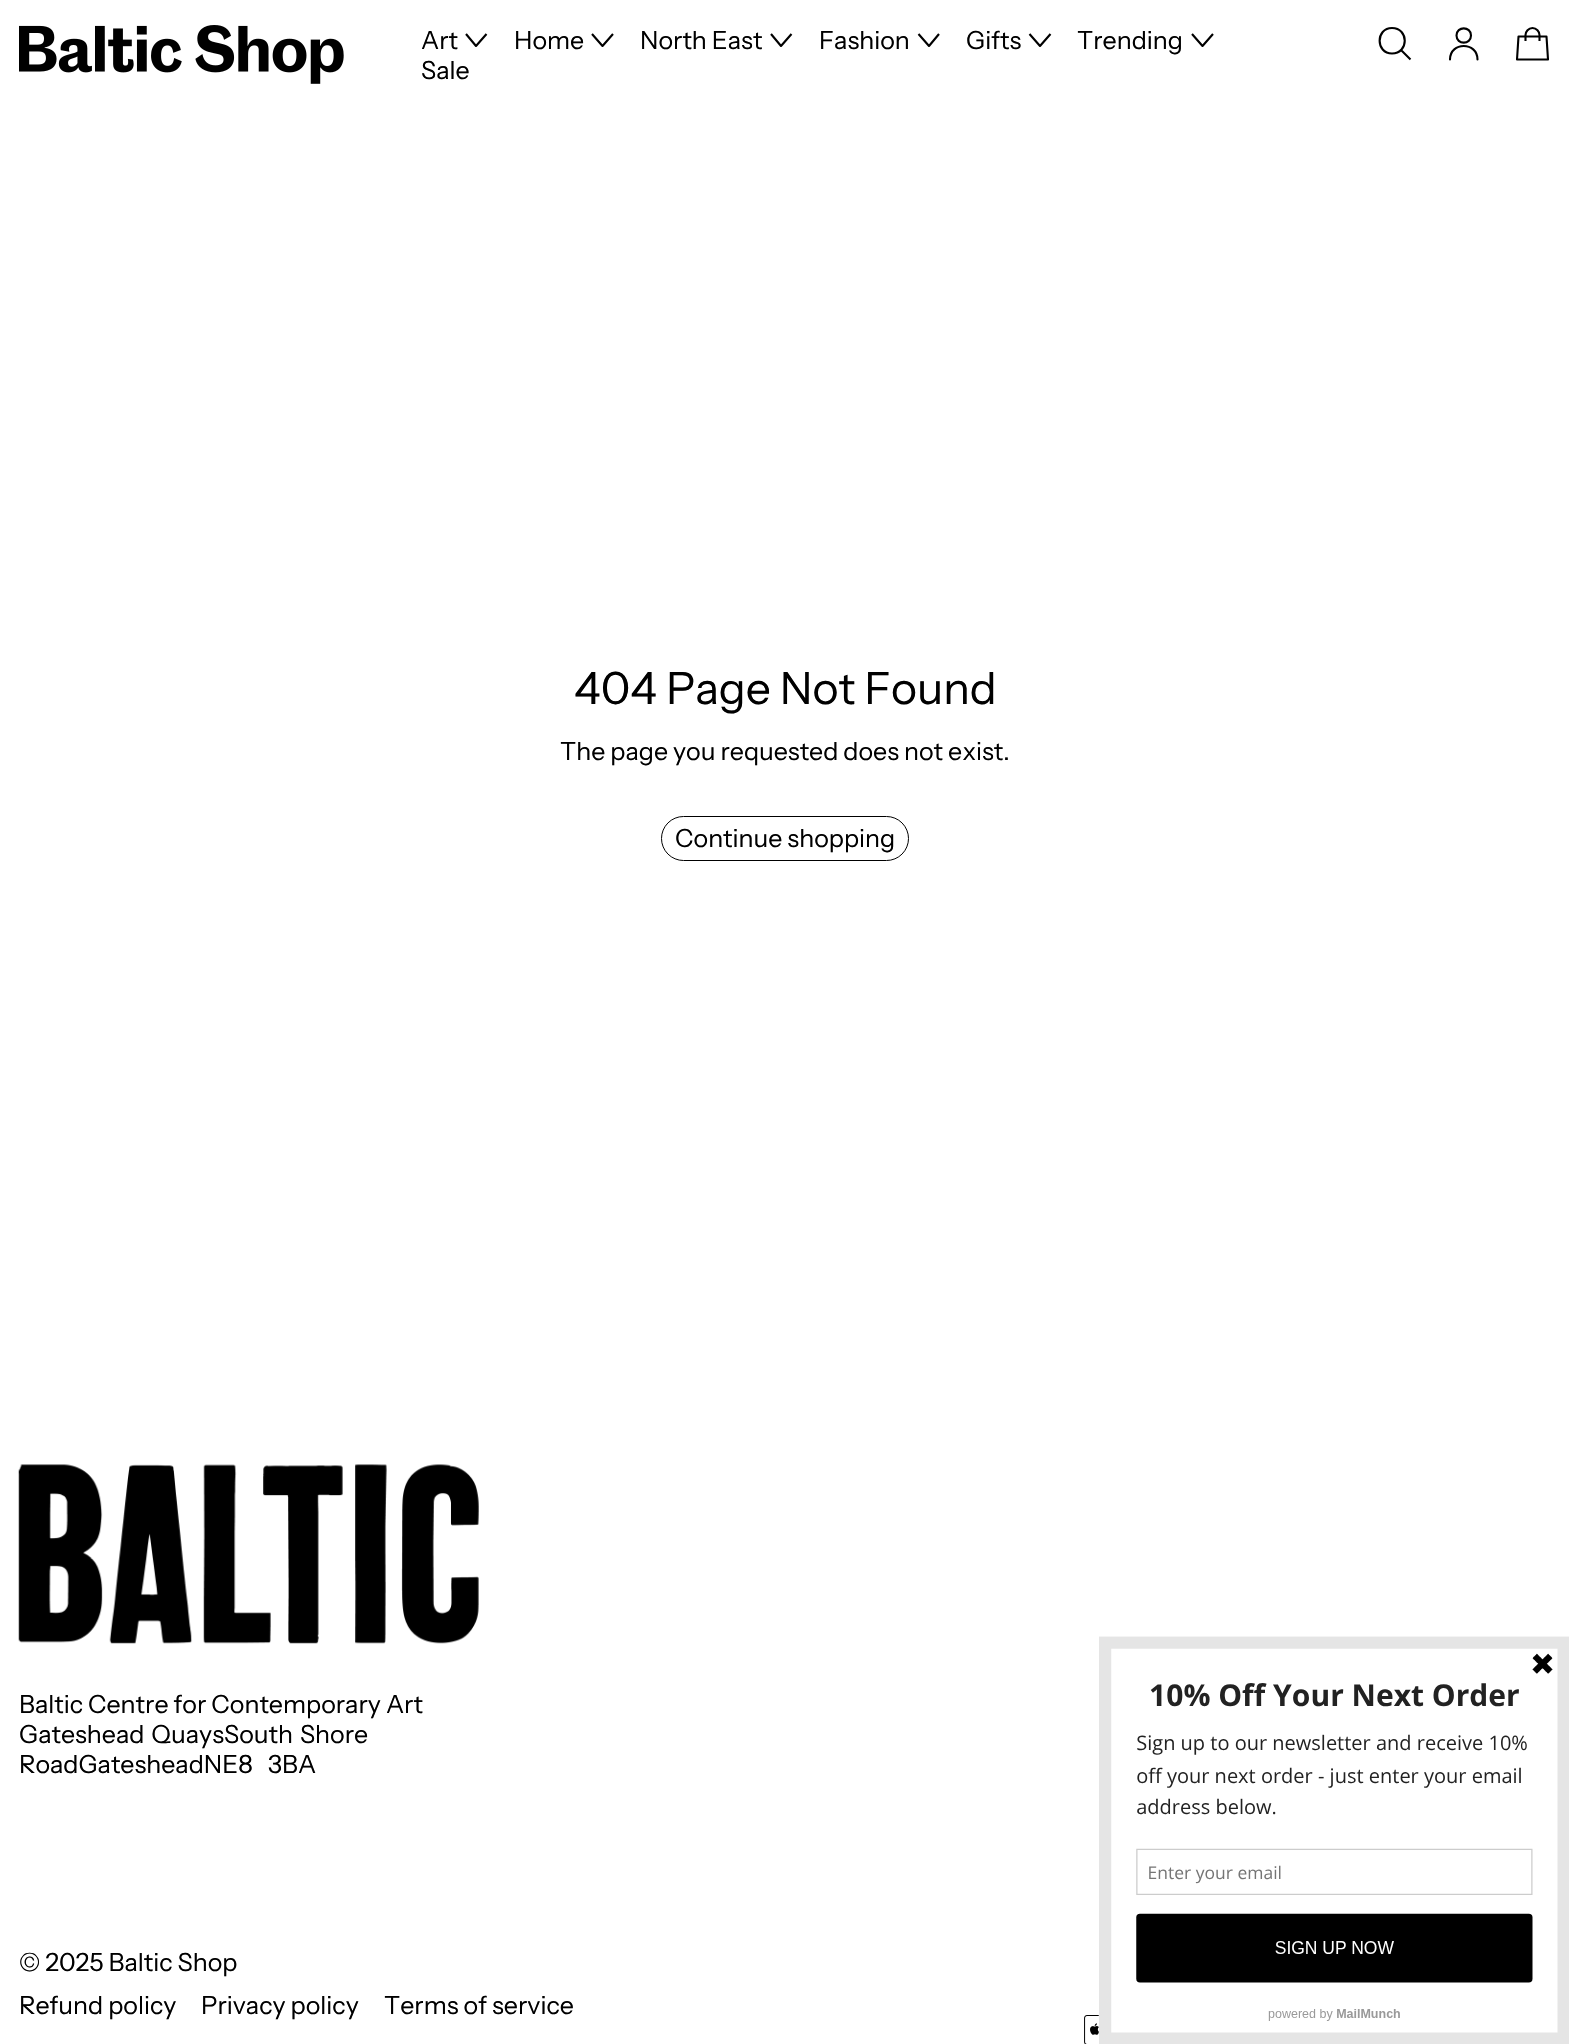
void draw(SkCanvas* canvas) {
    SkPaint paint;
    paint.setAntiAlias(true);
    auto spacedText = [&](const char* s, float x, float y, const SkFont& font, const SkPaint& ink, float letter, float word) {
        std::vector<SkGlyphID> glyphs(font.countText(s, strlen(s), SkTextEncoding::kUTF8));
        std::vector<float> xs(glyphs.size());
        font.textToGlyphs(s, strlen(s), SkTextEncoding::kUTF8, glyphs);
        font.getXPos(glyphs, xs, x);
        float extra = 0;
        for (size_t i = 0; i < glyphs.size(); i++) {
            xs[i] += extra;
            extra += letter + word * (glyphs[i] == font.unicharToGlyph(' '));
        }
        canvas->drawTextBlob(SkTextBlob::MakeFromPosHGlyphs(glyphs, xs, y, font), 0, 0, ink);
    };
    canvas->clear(0xFFFFFFFF);
    canvas->drawImageRect(SkImages::DeferredFromEncodedData(SkData::MakeFromFileName("img1.png")), SkRect::MakeXYWH(19, 25, 325, 59), SkSamplingOptions());
    SkFont font1(fontMgr->matchFamilyStyle("Instrument Sans", SkFontStyle::Normal()), 25);
    font1.setSubpixel(true);
    paint.setColor(0xFF000000);
    canvas->drawString("Art", 421, 49, font1, paint);
    paint.setStyle(SkPaint::kStroke_Style);
    paint.setStrokeWidth(2.1f);
    paint.setStrokeJoin(SkPaint::kRound_Join);
    canvas->drawPath(SkPathBuilder().moveTo(466, 34).lineTo(476, 46).lineTo(486.5f, 34).detach(), paint);
    paint.setStyle(SkPaint::kFill_Style);
    canvas->drawString("Home", 514, 49, font1, paint);
    paint.setStyle(SkPaint::kStroke_Style);
    canvas->drawPath(SkPathBuilder().moveTo(592, 34).lineTo(602.5f, 46).lineTo(613, 34).detach(), paint);
    paint.setStyle(SkPaint::kFill_Style);
    canvas->drawString("North East", 640, 49, font1, paint);
    paint.setStyle(SkPaint::kStroke_Style);
    canvas->drawPath(SkPathBuilder().moveTo(771, 34).lineTo(781, 46).lineTo(791.5f, 34).detach(), paint);
    paint.setStyle(SkPaint::kFill_Style);
    canvas->drawString("Fashion", 819, 49, font1, paint);
    paint.setStyle(SkPaint::kStroke_Style);
    canvas->drawPath(SkPathBuilder().moveTo(918.5f, 34).lineTo(929, 46).lineTo(939, 34).detach(), paint);
    paint.setStyle(SkPaint::kFill_Style);
    canvas->drawString("Gifts", 966, 49, font1, paint);
    paint.setStyle(SkPaint::kStroke_Style);
    canvas->drawPath(SkPathBuilder().moveTo(1029.5f, 34).lineTo(1040, 46).lineTo(1050.5f, 34).detach(), paint);
    paint.setStyle(SkPaint::kFill_Style);
    canvas->drawString("Trending", 1077, 49, font1, paint);
    paint.setStyle(SkPaint::kStroke_Style);
    canvas->drawPath(SkPathBuilder().moveTo(1192, 34).lineTo(1202.5f, 46).lineTo(1213, 34).detach(), paint);
    paint.setStyle(SkPaint::kFill_Style);
    canvas->drawString("Sale", 421, 79, font1, paint);
    paint.setStyle(SkPaint::kStroke_Style);
    paint.setStrokeJoin(SkPaint::kMiter_Join);
    canvas->drawPath(SkPathBuilder().moveTo(1392, 53.5f).cubicTo(1409, 53.5f, 1409, 28, 1392, 28).cubicTo(1375.5f, 28, 1375.5f, 53.5f, 1392, 53.5f).close().moveTo(1401, 50).lineTo(1410.5f, 59.5f).detach(), paint);
    paint.setStrokeCap(SkPaint::kRound_Cap);
    paint.setStrokeJoin(SkPaint::kRound_Join);
    canvas->drawPath(SkPathBuilder().moveTo(1456.5f, 35.5f).cubicTo(1456.5f, 45, 1471, 45, 1471, 35.5f).cubicTo(1471, 26, 1456.5f, 26, 1456.5f, 35.5f).close().moveTo(1450, 59.5f).cubicTo(1450, 41.5f, 1477.5f, 41.5f, 1477.5f, 59.5f).detach(), paint);
    paint.setStrokeCap(SkPaint::kButt_Cap);
    canvas->drawPath(SkPathBuilder().moveTo(1548, 59.5f).lineTo(1517, 59.5f).lineTo(1518.5f, 36.5f).lineTo(1546.5f, 36.5f).close().moveTo(1525.5f, 41).lineTo(1525.5f, 35).cubicTo(1525.5f, 31.5f, 1528.5f, 28, 1532.5f, 28).cubicTo(1536.5f, 28, 1539.5f, 31.5f, 1539.5f, 35).lineTo(1539.5f, 41).detach(), paint);
    SkFont font2(fontMgr->matchFamilyStyle("Instrument Sans", SkFontStyle::Normal()), 44.5f);
    font2.setSubpixel(true);
    paint.setStyle(SkPaint::kFill_Style);
    canvas->drawString("404 Page Not Found", 574, 704, font2, paint);
    canvas->drawString("The page you requested does not exist.", 560, 760, font1, paint);
    paint.setStyle(SkPaint::kStroke_Style);
    paint.setStrokeWidth(1);
    paint.setStrokeJoin(SkPaint::kMiter_Join);
    canvas->drawRoundRect(SkRect::MakeXYWH(661.5f, 816.5f, 247, 44), 22, 22, paint);
    paint.setStyle(SkPaint::kFill_Style);
    canvas->drawString("Continue shopping", 675, 847, font1, paint);
    canvas->drawImageRect(SkImages::DeferredFromEncodedData(SkData::MakeFromFileName("img2.png")), SkRect::MakeXYWH(18, 1464, 461, 180), SkSamplingOptions());
    canvas->drawString("Baltic Centre for Contemporary Art", 19, 1713, font1, paint);
    spacedText("Gateshead QuaysSouth Shore", 19, 1743, font1, paint, 0, 2);
    spacedText("RoadGatesheadNE8 3BA", 19, 1773, font1, paint, 0, 10);
    canvas->drawString("© 2025 Baltic Shop", 19, 1971, font1, paint);
    canvas->drawString("Refund policy", 19, 2014, font1, paint);
    canvas->drawString("Privacy policy", 201, 2014, font1, paint);
    canvas->drawString("Terms of service", 384, 2014, font1, paint);
    canvas->drawImageRect(SkImages::DeferredFromEncodedData(SkData::MakeFromFileName("img3.png")), SkRect::MakeXYWH(1084, 2015, 15, 29), SkSamplingOptions());
    canvas->drawImageRect(SkImages::DeferredFromEncodedData(SkData::MakeFromFileName("img4.png")), SkRect::MakeXYWH(1098, 1636, 471, 408), SkSamplingOptions());
}
